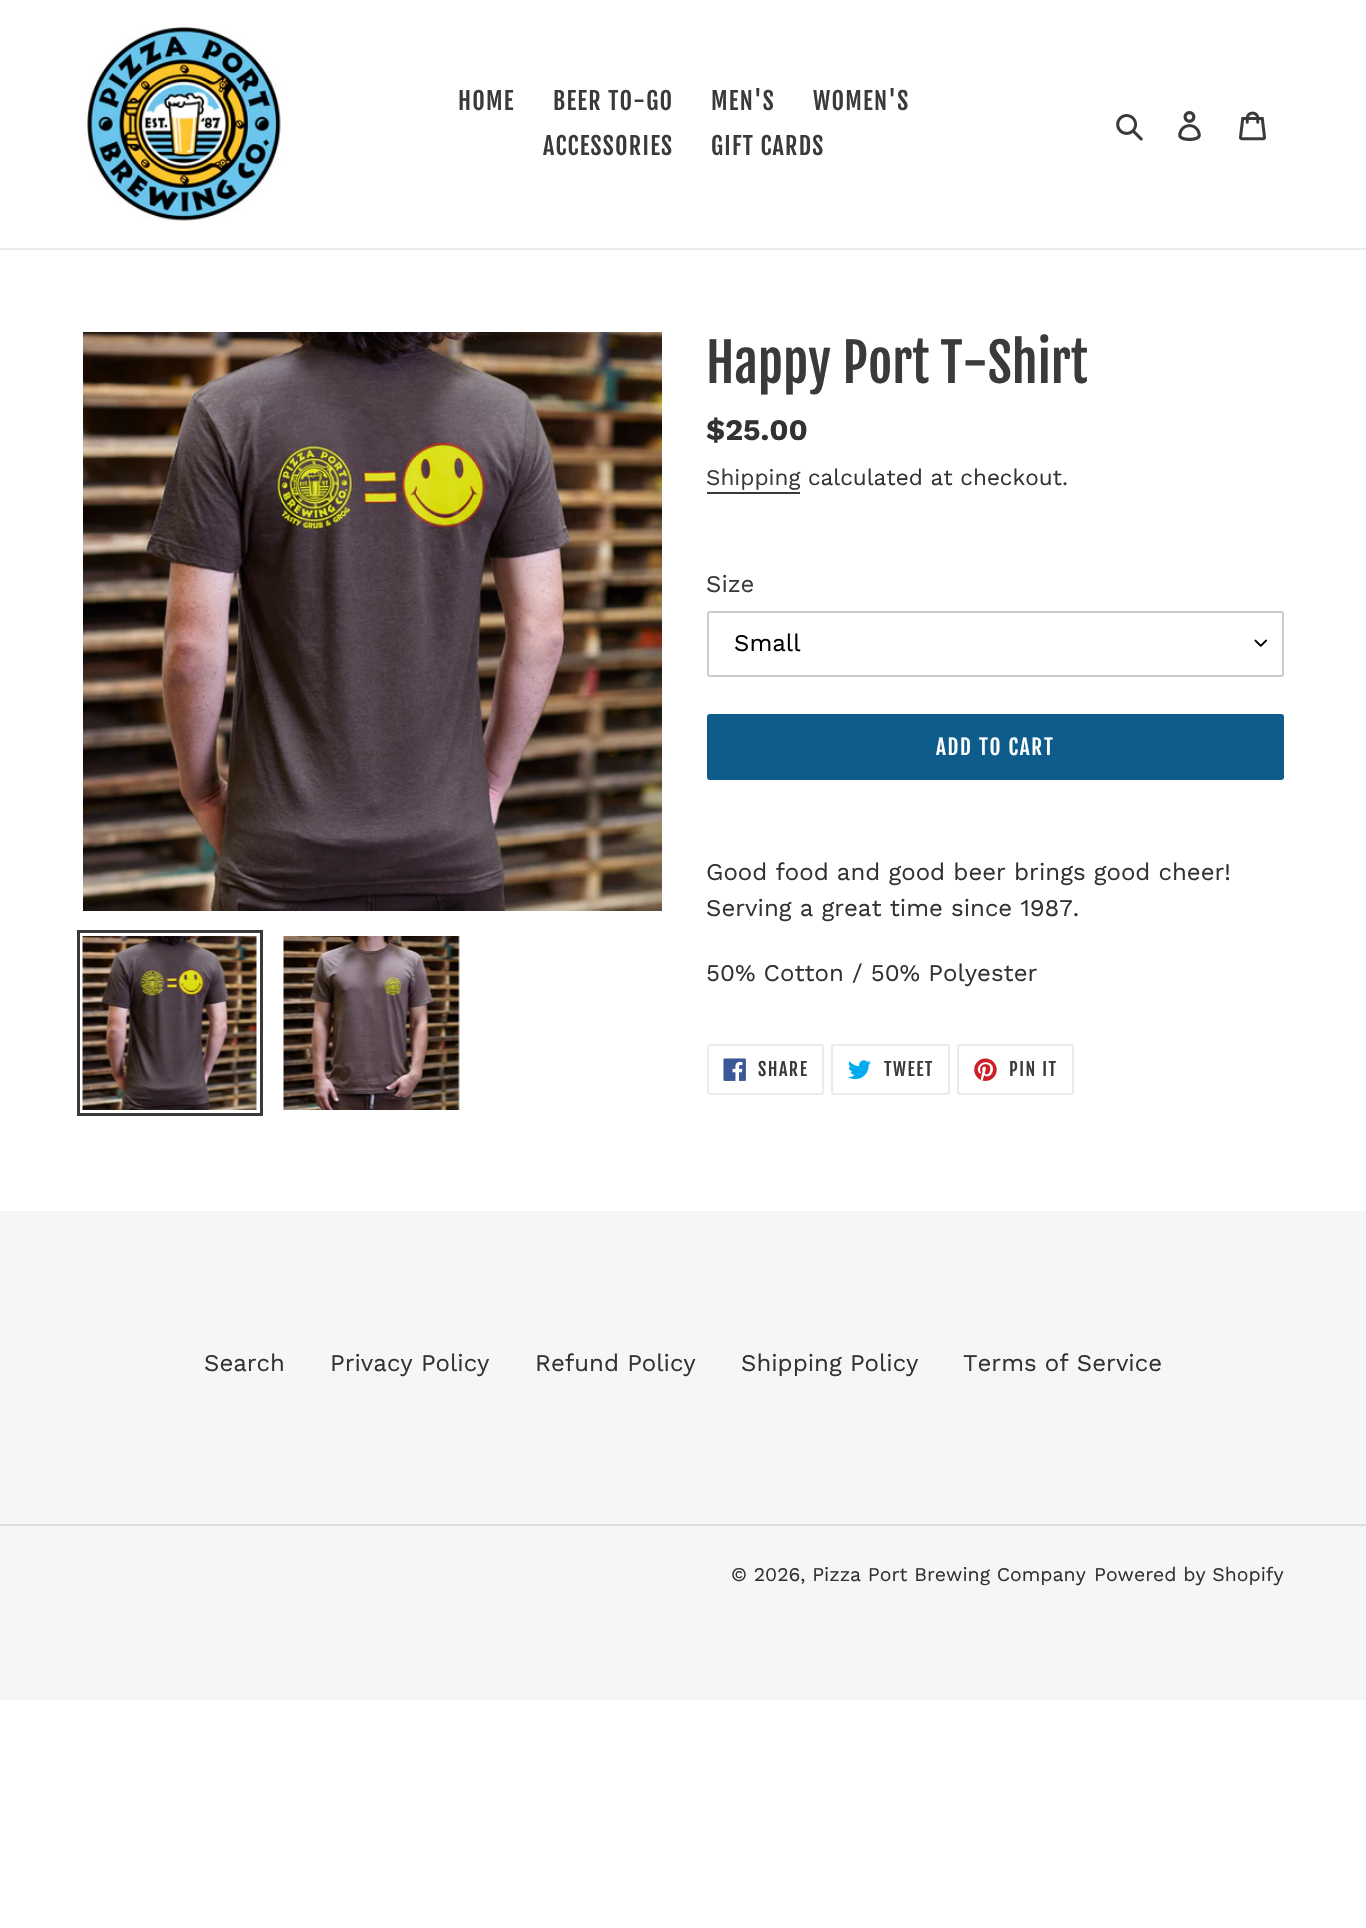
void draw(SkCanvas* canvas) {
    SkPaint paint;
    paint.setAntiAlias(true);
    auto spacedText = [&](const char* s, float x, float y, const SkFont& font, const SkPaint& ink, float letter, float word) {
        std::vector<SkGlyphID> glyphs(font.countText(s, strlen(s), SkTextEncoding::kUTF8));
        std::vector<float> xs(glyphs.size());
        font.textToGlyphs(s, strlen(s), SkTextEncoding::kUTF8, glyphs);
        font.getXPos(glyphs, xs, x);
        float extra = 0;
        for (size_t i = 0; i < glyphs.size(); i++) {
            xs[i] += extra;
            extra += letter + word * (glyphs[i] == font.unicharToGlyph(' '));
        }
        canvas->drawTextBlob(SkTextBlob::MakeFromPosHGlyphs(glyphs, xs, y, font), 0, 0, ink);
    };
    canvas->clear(0xFFFFFFFF);
    paint.setColor(0xFFEBEBEB);
    canvas->drawRect(SkRect::MakeXYWH(0, 248, 1366, 2), paint);
    canvas->drawImageRect(SkImages::DeferredFromEncodedData(SkData::MakeFromFileName("img1.png")), SkRect::MakeXYWH(85, 25, 196, 196), SkSamplingOptions());
    SkFont font1(fontMgr->matchFamilyStyle("Fjalla One", SkFontStyle::Normal()), 24);
    font1.setSubpixel(true);
    paint.setColor(0xFF3A3A3A);
    spacedText("HOME", 458, 110, font1, paint, 1.25f, 0);
    spacedText("BEER TO-GO", 553, 110, font1, paint, 1.25f, 0);
    spacedText("MEN'S", 711, 110, font1, paint, 1.25f, 0);
    spacedText("WOMEN'S", 813, 110, font1, paint, 1.25f, 0);
    spacedText("ACCESSORIES", 543, 155, font1, paint, 1.25f, 0);
    spacedText("GIFT CARDS", 711, 155, font1, paint, 1.25f, 0);
    canvas->drawImageRect(SkImages::DeferredFromEncodedData(SkData::MakeFromFileName("img2.png")), SkRect::MakeXYWH(1116, 114, 27, 27), SkSamplingOptions());
    canvas->drawImageRect(SkImages::DeferredFromEncodedData(SkData::MakeFromFileName("img3.png")), SkRect::MakeXYWH(1178, 111, 23, 30), SkSamplingOptions());
    canvas->drawImageRect(SkImages::DeferredFromEncodedData(SkData::MakeFromFileName("img4.png")), SkRect::MakeXYWH(1239, 111, 27, 30), SkSamplingOptions());
    canvas->drawImageRect(SkImages::DeferredFromEncodedData(SkData::MakeFromFileName("img5.png")), SkRect::MakeXYWH(83, 332, 579, 579), SkSamplingOptions());
    paint.setStyle(SkPaint::kStroke_Style);
    paint.setStrokeWidth(3);
    canvas->drawRect(SkRect::MakeXYWH(78.5f, 931.5f, 183, 183), paint);
    canvas->drawImageRect(SkImages::DeferredFromEncodedData(SkData::MakeFromFileName("img6.png")), SkRect::MakeXYWH(82, 936, 175, 174), SkSamplingOptions());
    canvas->drawImageRect(SkImages::DeferredFromEncodedData(SkData::MakeFromFileName("img7.png")), SkRect::MakeXYWH(283, 936, 177, 174), SkSamplingOptions());
    SkFont font2(fontMgr->matchFamilyStyle("Fjalla One", SkFontStyle::Normal()), 52.5f);
    font2.setSubpixel(true);
    paint.setStyle(SkPaint::kFill_Style);
    canvas->drawString("Happy Port T-Shirt", 706, 383, font2, paint);
    SkFont font3(fontMgr->matchFamilyStyle("Work Sans", SkFontStyle::Bold()), 30);
    font3.setSubpixel(true);
    paint.setColor(0xFF333232);
    canvas->drawString("$25.00", 706, 440, font3, paint);
    SkFont font4(fontMgr->matchFamilyStyle("Work Sans", SkFontStyle::Normal()), 22.5f);
    font4.setSubpixel(true);
    paint.setColor(0xFF3A3A3A);
    canvas->drawString("Shipping", 706, 485, font4, paint);
    canvas->drawRect(SkRect::MakeXYWH(707, 492, 93, 2), paint);
    paint.setColor(0xFF333232);
    canvas->drawString("calculated at checkout.", 808, 485, font4, paint);
    SkFont font5(fontMgr->matchFamilyStyle("Work Sans", SkFontStyle::Normal()), 24);
    font5.setSubpixel(true);
    paint.setColor(0xFF3A3A3A);
    canvas->drawString("Size", 706, 592, font5, paint);
    canvas->drawImageRect(SkImages::DeferredFromEncodedData(SkData::MakeFromFileName("img8.png")), SkRect::MakeXYWH(1254, 639, 14, 8), SkSamplingOptions());
    paint.setStyle(SkPaint::kStroke_Style);
    paint.setStrokeWidth(2);
    paint.setColor(0xFFCCCCCC);
    canvas->drawRoundRect(SkRect::MakeXYWH(708, 612, 575, 64), 2, 2, paint);
    paint.setStyle(SkPaint::kFill_Style);
    paint.setColor(0xFF000000);
    canvas->drawString("Small", 734, 651, font5, paint);
    paint.setColor(0xFF0D5C8C);
    canvas->drawRoundRect(SkRect::MakeXYWH(707, 714, 577, 66), 3, 3, paint);
    SkFont font6(fontMgr->matchFamilyStyle("Fjalla One", SkFontStyle::Normal()), 21);
    font6.setSubpixel(true);
    paint.setColor(0xFFFFFFFF);
    spacedText("ADD TO CART", 936, 755, font6, paint, 1.75f, 0);
    paint.setColor(0xFF333232);
    canvas->drawString("Good food and good beer brings good cheer!", 706, 880, font5, paint);
    canvas->drawString("Serving a great time since 1987.", 706, 916, font5, paint);
    canvas->drawString("50% Cotton / 50% Polyester", 706, 981, font5, paint);
    paint.setStyle(SkPaint::kStroke_Style);
    paint.setColor(0xFFEBEBEB);
    canvas->drawRoundRect(SkRect::MakeXYWH(708, 1045, 115, 49), 2, 2, paint);
    canvas->drawImageRect(SkImages::DeferredFromEncodedData(SkData::MakeFromFileName("img9.png")), SkRect::MakeXYWH(723, 1058, 23, 23), SkSamplingOptions());
    SkFont font7(fontMgr->matchFamilyStyle("Fjalla One", SkFontStyle::Normal()), 18);
    font7.setSubpixel(true);
    paint.setStyle(SkPaint::kFill_Style);
    paint.setColor(0xFF3A3A3A);
    spacedText("SHARE", 758, 1076, font7, paint, 1.5f, 0);
    paint.setStyle(SkPaint::kStroke_Style);
    paint.setColor(0xFFEBEBEB);
    canvas->drawRoundRect(SkRect::MakeXYWH(832, 1045, 117, 49), 2, 2, paint);
    canvas->drawImageRect(SkImages::DeferredFromEncodedData(SkData::MakeFromFileName("img10.png")), SkRect::MakeXYWH(848, 1060, 23, 20), SkSamplingOptions());
    paint.setStyle(SkPaint::kFill_Style);
    paint.setColor(0xFF3A3A3A);
    spacedText("TWEET", 884, 1076, font7, paint, 1.5f, 0);
    paint.setStyle(SkPaint::kStroke_Style);
    paint.setColor(0xFFEBEBEB);
    canvas->drawRoundRect(SkRect::MakeXYWH(958, 1045, 115, 49), 2, 2, paint);
    canvas->drawImageRect(SkImages::DeferredFromEncodedData(SkData::MakeFromFileName("img11.png")), SkRect::MakeXYWH(974, 1058, 23, 23), SkSamplingOptions());
    paint.setStyle(SkPaint::kFill_Style);
    paint.setColor(0xFF3A3A3A);
    spacedText("PIN IT", 1009, 1076, font7, paint, 1.5f, 0);
    paint.setColor(0xFFF6F6F6);
    canvas->drawRect(SkRect::MakeXYWH(0, 1211, 1366, 489), paint);
    paint.setColor(0xFF333232);
    canvas->drawString("Search", 204, 1371, font5, paint);
    canvas->drawString("Privacy Policy", 330, 1371, font5, paint);
    canvas->drawString("Refund Policy", 535, 1371, font5, paint);
    canvas->drawString("Shipping Policy", 741, 1371, font5, paint);
    canvas->drawString("Terms of Service", 963, 1371, font5, paint);
    paint.setColor(0xFFDDDDDD);
    canvas->drawRect(SkRect::MakeXYWH(0, 1524, 1366, 2), paint);
    SkFont font8(fontMgr->matchFamilyStyle("Work Sans", SkFontStyle::Normal()), 19.5f);
    font8.setSubpixel(true);
    paint.setColor(0xFF333232);
    canvas->drawString("© 2026, Pizza Port Brewing Company", 731, 1581, font8, paint);
    canvas->drawString("Powered by Shopify", 1094, 1581, font8, paint);
}
